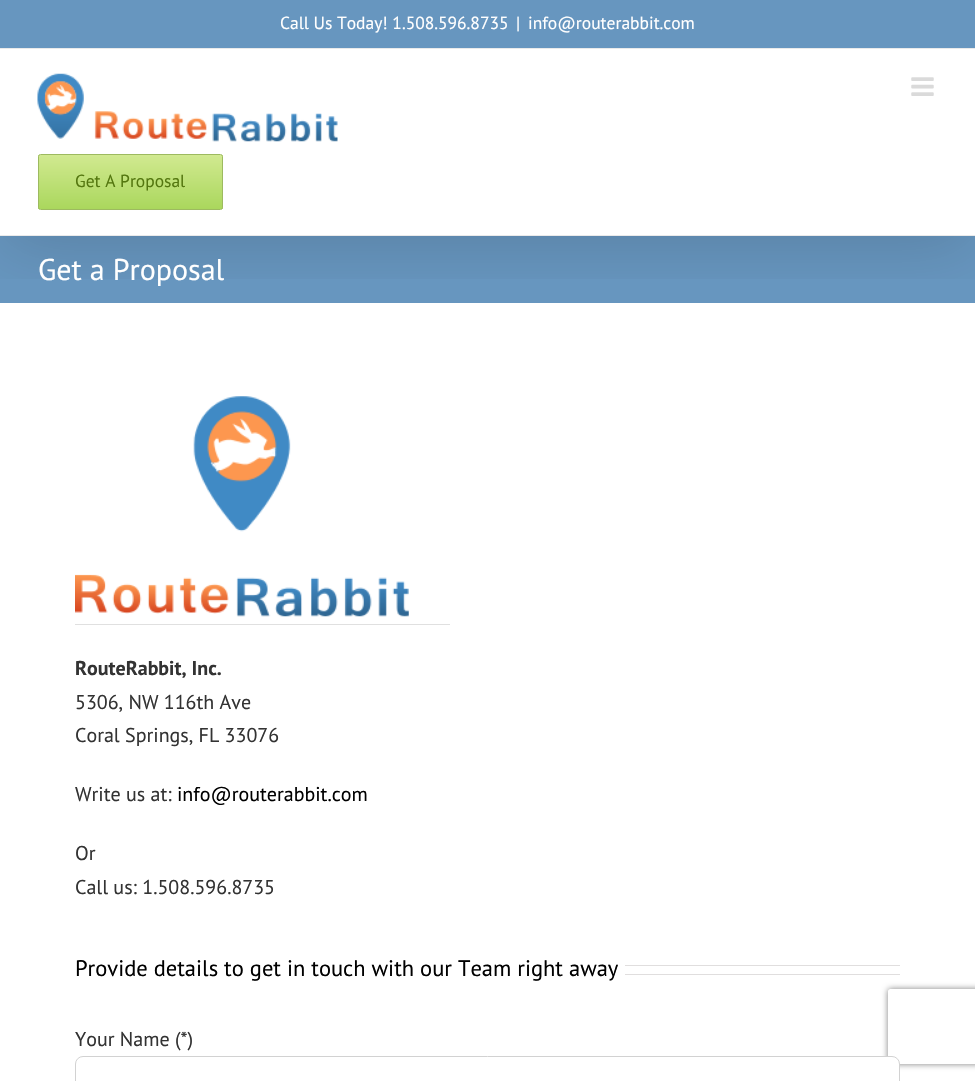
void draw(SkCanvas* canvas) {
    SkPaint paint;
    paint.setAntiAlias(true);
    canvas->clear(0xFFFFFFFF);
    paint.setColor(0xFF6796BF);
    canvas->drawRect(SkRect::MakeXYWH(0, 236, 975, 67), paint);
    canvas->save();
    canvas->clipRect(SkRect::MakeXYWH(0, 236, 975, 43));
    paint.setColor(0x24000000);
    paint.setMaskFilter(SkMaskFilter::MakeBlur(kNormal_SkBlurStyle, 31));
    canvas->drawRect(SkRect::MakeXYWH(3, 15, 970, 231), paint);
    paint.setMaskFilter(nullptr);
    canvas->restore();
    paint.setColor(0xFF6796BF);
    canvas->drawRect(SkRect::MakeXYWH(0, 0, 975, 48), paint);
    paint.setColor(0xFFEAEAEA);
    canvas->drawRect(SkRect::MakeXYWH(0, 48, 975, 1), paint);
    SkFont font1(fontMgr->matchFamilyStyle("PT Sans", SkFontStyle::Normal()), 17.5f);
    font1.setSubpixel(true);
    paint.setColor(0xFFFFFFFF);
    canvas->drawString("Call Us Today! 1.508.596.8735", 280, 29, font1, paint);
    canvas->drawString("|", 516, 29, font1, paint);
    canvas->drawString("info@routerabbit.com", 528, 29, font1, paint);
    paint.setColor(0xFFEAEAEA);
    canvas->drawRect(SkRect::MakeXYWH(0, 235, 975, 1), paint);
    canvas->drawImageRect(SkImages::DeferredFromEncodedData(SkData::MakeFromFileName("img1.png")), SkRect::MakeXYWH(911, 77, 23, 19), SkSamplingOptions());
    canvas->drawImageRect(SkImages::DeferredFromEncodedData(SkData::MakeFromFileName("img2.png")), SkRect::MakeXYWH(37, 73, 301, 69), SkSamplingOptions());
    canvas->save();
    canvas->clipPath(SkPathBuilder().moveTo(40.5f, 154).lineTo(220.5f, 154).cubicTo(222, 154, 223, 155, 223, 156.5f).lineTo(223, 207.5f).cubicTo(223, 209, 222, 210, 220.5f, 210).lineTo(40.5f, 210).cubicTo(39, 210, 38, 209, 38, 207.5f).lineTo(38, 156.5f).cubicTo(38, 155, 39, 154, 40.5f, 154).close().detach(), true);
    {
        const SkColor colors[] = {0xFFAAD75D, 0xFFD1E990};
        const float stops[] = {0, 1};
        const SkPoint ends[] = {{130, 209}, {130, 155}};
        paint.setShader(SkGradientShader::MakeLinear(ends, colors, stops, 2, SkTileMode::kClamp));
        paint.setAlpha(255);
    }
    canvas->drawRect(SkRect::MakeXYWH(38, 155, 185, 54), paint);
    canvas->restore();
    paint.setStyle(SkPaint::kStroke_Style);
    paint.setStrokeWidth(1);
    paint.setShader(nullptr);
    paint.setColor(0xFF9DBA60);
    canvas->drawRoundRect(SkRect::MakeXYWH(38.5f, 154.5f, 184, 55), 2, 2, paint);
    paint.setStyle(SkPaint::kFill_Style);
    paint.setColor(0xFF54770F);
    canvas->drawString("Get A Proposal", 75, 187, font1, paint);
    SkFont font2(fontMgr->matchFamilyStyle("PT Sans", SkFontStyle::Normal()), 30);
    font2.setSubpixel(true);
    paint.setColor(0xFFFFFFFF);
    canvas->drawString("Get a Proposal", 38, 280, font2, paint);
    canvas->drawImageRect(SkImages::DeferredFromEncodedData(SkData::MakeFromFileName("img3.png")), SkRect::MakeXYWH(75, 396, 334, 221), SkSamplingOptions());
    paint.setColor(0xFFE0E0E0);
    canvas->drawRect(SkRect::MakeXYWH(75, 624, 375, 1), paint);
    SkFont font3(fontMgr->matchFamilyStyle("PT Sans", SkFontStyle::Bold()), 20);
    font3.setSubpixel(true);
    paint.setColor(0xFF333333);
    canvas->drawString("RouteRabbit, Inc.", 75, 675, font3, paint);
    SkFont font4(fontMgr->matchFamilyStyle("PT Sans", SkFontStyle::Normal()), 20);
    font4.setSubpixel(true);
    canvas->drawString("5306, NW 116th Ave", 75, 709, font4, paint);
    canvas->drawString("Coral Springs, FL 33076", 75, 742, font4, paint);
    canvas->drawString("Write us at:", 75, 801, font4, paint);
    paint.setColor(0xFF000000);
    canvas->drawString("info@routerabbit.com", 177, 801, font4, paint);
    paint.setColor(0xFF333333);
    canvas->drawString("Or", 75, 860, font4, paint);
    canvas->drawString("Call us: 1.508.596.8735", 75, 894, font4, paint);
    SkFont font5(fontMgr->matchFamilyStyle("PT Sans", SkFontStyle::Normal()), 22.5f);
    font5.setSubpixel(true);
    paint.setColor(0xFF000000);
    canvas->drawString("Provide details to get in touch with our Team right away", 75, 976, font5, paint);
    paint.setColor(0xFFE0DEDE);
    canvas->drawRect(SkRect::MakeXYWH(625, 965, 275, 1), paint);
    canvas->drawRect(SkRect::MakeXYWH(625, 974, 275, 1), paint);
    paint.setColor(0xFF333333);
    canvas->drawString("Your Name (*)", 75, 1046, font4, paint);
    canvas->save();
    canvas->clipPath(SkPathBuilder(SkPathFillType::kEvenOdd).moveTo(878, 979).lineTo(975, 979).lineTo(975, 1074).lineTo(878, 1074).close().moveTo(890.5f, 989).lineTo(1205.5f, 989).cubicTo(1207, 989, 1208, 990, 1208, 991.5f).lineTo(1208, 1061.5f).cubicTo(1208, 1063, 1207, 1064, 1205.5f, 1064).lineTo(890.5f, 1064).cubicTo(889, 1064, 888, 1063, 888, 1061.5f).lineTo(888, 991.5f).cubicTo(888, 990, 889, 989, 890.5f, 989).close().detach(), true);
    paint.setColor(0xFF808080);
    paint.setMaskFilter(SkMaskFilter::MakeBlur(kNormal_SkBlurStyle, 3));
    canvas->drawRoundRect(SkRect::MakeXYWH(888, 989, 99, 75), 2.5f, 2.5f, paint);
    paint.setMaskFilter(nullptr);
    canvas->restore();
    paint.setColor(0xFFFFFFFF);
    canvas->drawRoundRect(SkRect::MakeXYWH(75.5f, 1056.5f, 824, 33), 7.5f, 7.5f, paint);
    paint.setStyle(SkPaint::kStroke_Style);
    paint.setColor(0xFFD2D2D2);
    canvas->drawRoundRect(SkRect::MakeXYWH(75.5f, 1056.5f, 824, 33), 7.5f, 7.5f, paint);
}
